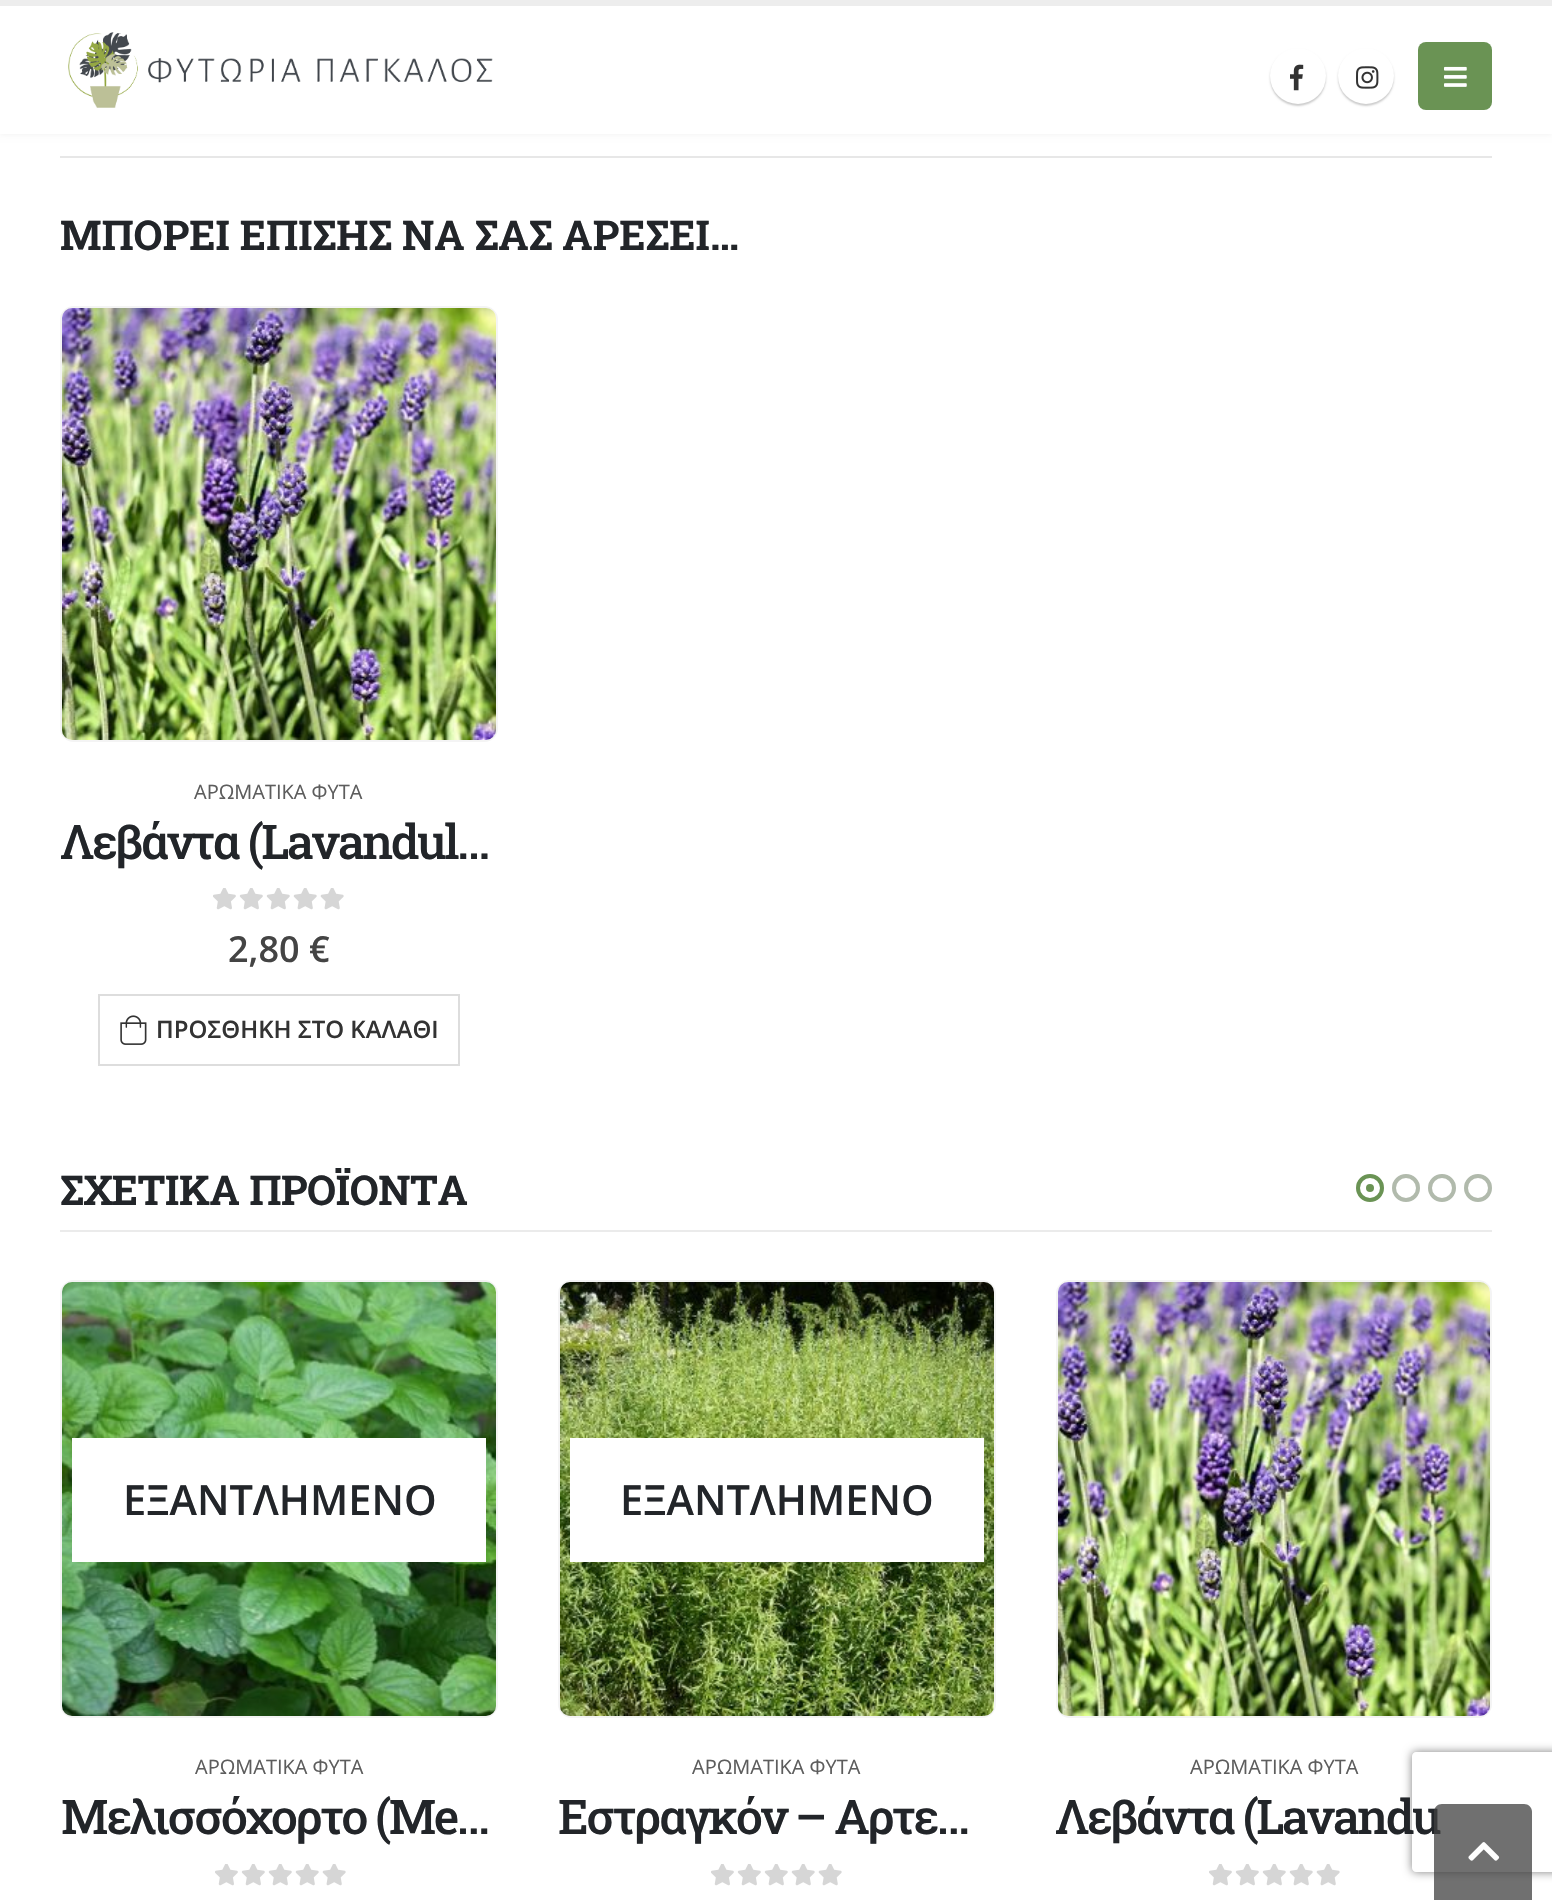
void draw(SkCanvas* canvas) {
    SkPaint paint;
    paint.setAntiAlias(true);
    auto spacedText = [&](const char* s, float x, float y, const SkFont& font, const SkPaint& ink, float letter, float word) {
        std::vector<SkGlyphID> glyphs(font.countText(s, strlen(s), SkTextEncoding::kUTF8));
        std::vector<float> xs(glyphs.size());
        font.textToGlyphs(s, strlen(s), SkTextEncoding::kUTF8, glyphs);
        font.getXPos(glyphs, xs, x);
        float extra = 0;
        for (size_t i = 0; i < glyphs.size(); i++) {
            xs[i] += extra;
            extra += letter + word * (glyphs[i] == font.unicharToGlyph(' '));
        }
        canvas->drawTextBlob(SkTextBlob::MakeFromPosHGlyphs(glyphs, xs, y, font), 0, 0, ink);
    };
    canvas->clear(0xFFFFFFFF);
    paint.setColor(0x0F000000);
    paint.setMaskFilter(SkMaskFilter::MakeBlur(kNormal_SkBlurStyle, 3));
    canvas->drawRect(SkRect::MakeXYWH(0, 0, 1552, 134), paint);
    paint.setMaskFilter(nullptr);
    paint.setColor(0xFFFFFFFF);
    canvas->drawRect(SkRect::MakeXYWH(0, 6, 1552, 128), paint);
    paint.setColor(0xFFEDEDED);
    canvas->drawRect(SkRect::MakeXYWH(0, 0, 1552, 6), paint);
    canvas->drawImageRect(SkImages::DeferredFromEncodedData(SkData::MakeFromFileName("img1.png")), SkRect::MakeXYWH(68, 32, 425, 76), SkSamplingOptions());
    paint.setColor(0x33000000);
    paint.setMaskFilter(SkMaskFilter::MakeBlur(kNormal_SkBlurStyle, 1));
    canvas->drawRoundRect(SkRect::MakeXYWH(1270, 50, 56, 56), 28, 28, paint);
    paint.setMaskFilter(nullptr);
    paint.setColor(0xFFFFFFFF);
    canvas->drawCircle(1298, 76, 28, paint);
    canvas->drawImageRect(SkImages::DeferredFromEncodedData(SkData::MakeFromFileName("img2.png")), SkRect::MakeXYWH(1290, 64, 14, 27), SkSamplingOptions());
    paint.setColor(0x33000000);
    paint.setMaskFilter(SkMaskFilter::MakeBlur(kNormal_SkBlurStyle, 1));
    canvas->drawRoundRect(SkRect::MakeXYWH(1338, 50, 56, 56), 28, 28, paint);
    paint.setMaskFilter(nullptr);
    paint.setColor(0xFFFFFFFF);
    canvas->drawCircle(1366, 76, 28, paint);
    canvas->drawImageRect(SkImages::DeferredFromEncodedData(SkData::MakeFromFileName("img3.png")), SkRect::MakeXYWH(1356, 66, 23, 23), SkSamplingOptions());
    paint.setColor(0xFF6A9354);
    canvas->drawRoundRect(SkRect::MakeXYWH(1418, 42, 74, 68), 8, 8, paint);
    canvas->drawImageRect(SkImages::DeferredFromEncodedData(SkData::MakeFromFileName("img4.png")), SkRect::MakeXYWH(1444, 66, 23, 21), SkSamplingOptions());
    paint.setColor(0xFFE7E7E7);
    canvas->drawRect(SkRect::MakeXYWH(60, 156, 1432, 2), paint);
    SkFont font1(fontMgr->matchFamilyStyle("Roboto Slab", SkFontStyle::Bold()), 41.1f);
    font1.setSubpixel(true);
    paint.setColor(0xFF222529);
    canvas->drawString("ΜΠΟΡΕΙ ΕΠΙΣΗΣ ΝΑ ΣΑΣ ΑΡΕΣΕΙ…", 60, 250, font1, paint);
    paint.setStyle(SkPaint::kStroke_Style);
    paint.setStrokeWidth(2);
    paint.setColor(0xFFF4F4F4);
    canvas->drawRoundRect(SkRect::MakeXYWH(61, 307, 436, 434), 13, 13, paint);
    canvas->drawImageRect(SkImages::DeferredFromEncodedData(SkData::MakeFromFileName("img5.png")), SkRect::MakeXYWH(62, 308, 434, 432), SkSamplingOptions());
    SkFont font2(fontMgr->matchFamilyStyle("Open Sans", SkFontStyle::Normal()), 20);
    font2.setSubpixel(true);
    paint.setStyle(SkPaint::kFill_Style);
    paint.setColor(0xFF5D5D5D);
    canvas->drawString("ΑΡΩΜΑΤΙΚΑ ΦΥΤΑ", 194, 799, font2, paint);
    SkFont font3(fontMgr->matchFamilyStyle("Roboto Slab", SkFontStyle(500, SkFontStyle::kNormal_Width, SkFontStyle::kUpright_Slant)), 48);
    font3.setSubpixel(true);
    paint.setColor(0xFF222529);
    spacedText("Λεβάντα (Lavandul…", 60, 859, font3, paint, -2.4f, 0);
    canvas->drawImageRect(SkImages::DeferredFromEncodedData(SkData::MakeFromFileName("img6.png")), SkRect::MakeXYWH(213, 888, 131, 22), SkSamplingOptions());
    SkFont font4(fontMgr->matchFamilyStyle("Open Sans", SkFontStyle(600, SkFontStyle::kNormal_Width, SkFontStyle::kUpright_Slant)), 36);
    font4.setSubpixel(true);
    paint.setColor(0xFF444444);
    canvas->drawString("2,80 €", 228, 962, font4, paint);
    paint.setStyle(SkPaint::kStroke_Style);
    paint.setColor(0xFFDDDDDD);
    canvas->drawRect(SkRect::MakeXYWH(99, 995, 360, 70), paint);
    canvas->drawImageRect(SkImages::DeferredFromEncodedData(SkData::MakeFromFileName("img7.png")), SkRect::MakeXYWH(120, 1015, 27, 30), SkSamplingOptions());
    SkFont font5(fontMgr->matchFamilyStyle("Open Sans", SkFontStyle(600, SkFontStyle::kNormal_Width, SkFontStyle::kUpright_Slant)), 24);
    font5.setSubpixel(true);
    paint.setStyle(SkPaint::kFill_Style);
    paint.setColor(0xFF333333);
    canvas->drawString("ΠΡΟΣΘΗΚΗ ΣΤΟ ΚΑΛΑΘΙ", 156, 1038, font5, paint);
    paint.setColor(0xFFEBEBEB);
    canvas->drawRect(SkRect::MakeXYWH(60, 1230, 1432, 2), paint);
    paint.setColor(0xFF222529);
    spacedText("ΣΧΕΤΙΚΑ ΠΡΟΪΟΝΤΑ", 60, 1205, font1, paint, -0.4f, 0);
    paint.setStyle(SkPaint::kStroke_Style);
    paint.setStrokeWidth(4);
    paint.setColor(0xFF6A9354);
    canvas->drawCircle(1370, 1188, 12, paint);
    paint.setStyle(SkPaint::kFill_Style);
    canvas->drawCircle(1370, 1188, 4, paint);
    paint.setStyle(SkPaint::kStroke_Style);
    paint.setColor(0xFFB1BAAC);
    canvas->drawCircle(1406, 1188, 12, paint);
    canvas->drawCircle(1442, 1188, 12, paint);
    canvas->drawCircle(1478, 1188, 12, paint);
    paint.setStrokeWidth(2);
    paint.setColor(0xFFF4F4F4);
    canvas->drawRoundRect(SkRect::MakeXYWH(61, 1281, 436, 436), 13, 13, paint);
    canvas->drawImageRect(SkImages::DeferredFromEncodedData(SkData::MakeFromFileName("img8.png")), SkRect::MakeXYWH(62, 1282, 434, 434), SkSamplingOptions());
    paint.setStyle(SkPaint::kFill_Style);
    paint.setColor(0xFFFFFFFF);
    canvas->drawRect(SkRect::MakeXYWH(72, 1438, 414, 124), paint);
    SkFont font6(fontMgr->matchFamilyStyle("Open Sans", SkFontStyle(600, SkFontStyle::kNormal_Width, SkFontStyle::kUpright_Slant)), 41.5f);
    font6.setSubpixel(true);
    paint.setColor(0xFF222529);
    canvas->drawString("ΕΞΑΝΤΛΗΜΕΝΟ", 123, 1515, font6, paint);
    paint.setColor(0xFF5D5D5D);
    canvas->drawString("ΑΡΩΜΑΤΙΚΑ ΦΥΤΑ", 195, 1774, font2, paint);
    paint.setColor(0xFF222529);
    spacedText("Μελισσόχορτο (Me…", 61, 1834, font3, paint, -2.4f, 0);
    canvas->drawImageRect(SkImages::DeferredFromEncodedData(SkData::MakeFromFileName("img6.png")), SkRect::MakeXYWH(215, 1864, 131, 22), SkSamplingOptions());
    paint.setStyle(SkPaint::kStroke_Style);
    paint.setColor(0xFFF4F4F4);
    canvas->drawRoundRect(SkRect::MakeXYWH(559, 1281, 436, 436), 13, 13, paint);
    canvas->drawImageRect(SkImages::DeferredFromEncodedData(SkData::MakeFromFileName("img9.png")), SkRect::MakeXYWH(560, 1282, 434, 434), SkSamplingOptions());
    paint.setStyle(SkPaint::kFill_Style);
    paint.setColor(0xFFFFFFFF);
    canvas->drawRect(SkRect::MakeXYWH(570, 1438, 414, 124), paint);
    paint.setColor(0xFF222529);
    canvas->drawString("ΕΞΑΝΤΛΗΜΕΝΟ", 620, 1515, font6, paint);
    paint.setColor(0xFF5D5D5D);
    canvas->drawString("ΑΡΩΜΑΤΙΚΑ ΦΥΤΑ", 692, 1774, font2, paint);
    paint.setColor(0xFF222529);
    spacedText("Εστραγκόν – Αρτε…", 558, 1834, font3, paint, -2.4f, 0);
    canvas->drawImageRect(SkImages::DeferredFromEncodedData(SkData::MakeFromFileName("img6.png")), SkRect::MakeXYWH(711, 1864, 131, 22), SkSamplingOptions());
    paint.setStyle(SkPaint::kStroke_Style);
    paint.setColor(0xFFF4F4F4);
    canvas->drawRoundRect(SkRect::MakeXYWH(1057, 1281, 434, 436), 13, 13, paint);
    canvas->drawImageRect(SkImages::DeferredFromEncodedData(SkData::MakeFromFileName("img10.png")), SkRect::MakeXYWH(1058, 1282, 432, 434), SkSamplingOptions());
    paint.setStyle(SkPaint::kFill_Style);
    paint.setColor(0xFF5D5D5D);
    canvas->drawString("ΑΡΩΜΑΤΙΚΑ ΦΥΤΑ", 1190, 1774, font2, paint);
    canvas->save();
    canvas->clipPath(SkPathBuilder(SkPathFillType::kEvenOdd).moveTo(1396, 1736).lineTo(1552, 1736).lineTo(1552, 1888).lineTo(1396, 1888).close().moveTo(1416, 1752).lineTo(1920, 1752).cubicTo(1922, 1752, 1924, 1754, 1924, 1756).lineTo(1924, 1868).cubicTo(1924, 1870, 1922, 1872, 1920, 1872).lineTo(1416, 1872).cubicTo(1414, 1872, 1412, 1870, 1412, 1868).lineTo(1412, 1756).cubicTo(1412, 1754, 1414, 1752, 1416, 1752).close().detach(), true);
    paint.setColor(0xFF808080);
    paint.setMaskFilter(SkMaskFilter::MakeBlur(kNormal_SkBlurStyle, 5));
    canvas->drawRoundRect(SkRect::MakeXYWH(1412, 1752, 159, 120), 4, 4, paint);
    paint.setMaskFilter(nullptr);
    canvas->restore();
    paint.setColor(0xFF222529);
    spacedText("Λεβάντα (Lavandu", 1055, 1834, font3, paint, -2.4f, 0);
    canvas->drawImageRect(SkImages::DeferredFromEncodedData(SkData::MakeFromFileName("img6.png")), SkRect::MakeXYWH(1209, 1864, 131, 22), SkSamplingOptions());
    paint.setColor(0xBF404040);
    canvas->drawPath(SkPathBuilder().moveTo(1442, 1804).lineTo(1524, 1804).cubicTo(1528.5f, 1804, 1532, 1807.5f, 1532, 1812).lineTo(1532, 1900).lineTo(1434, 1900).lineTo(1434, 1812).cubicTo(1434, 1807.5f, 1437.5f, 1804, 1442, 1804).close().detach(), paint);
    canvas->drawImageRect(SkImages::DeferredFromEncodedData(SkData::MakeFromFileName("img11.png")), SkRect::MakeXYWH(1468, 1842, 32, 19), SkSamplingOptions());
}
